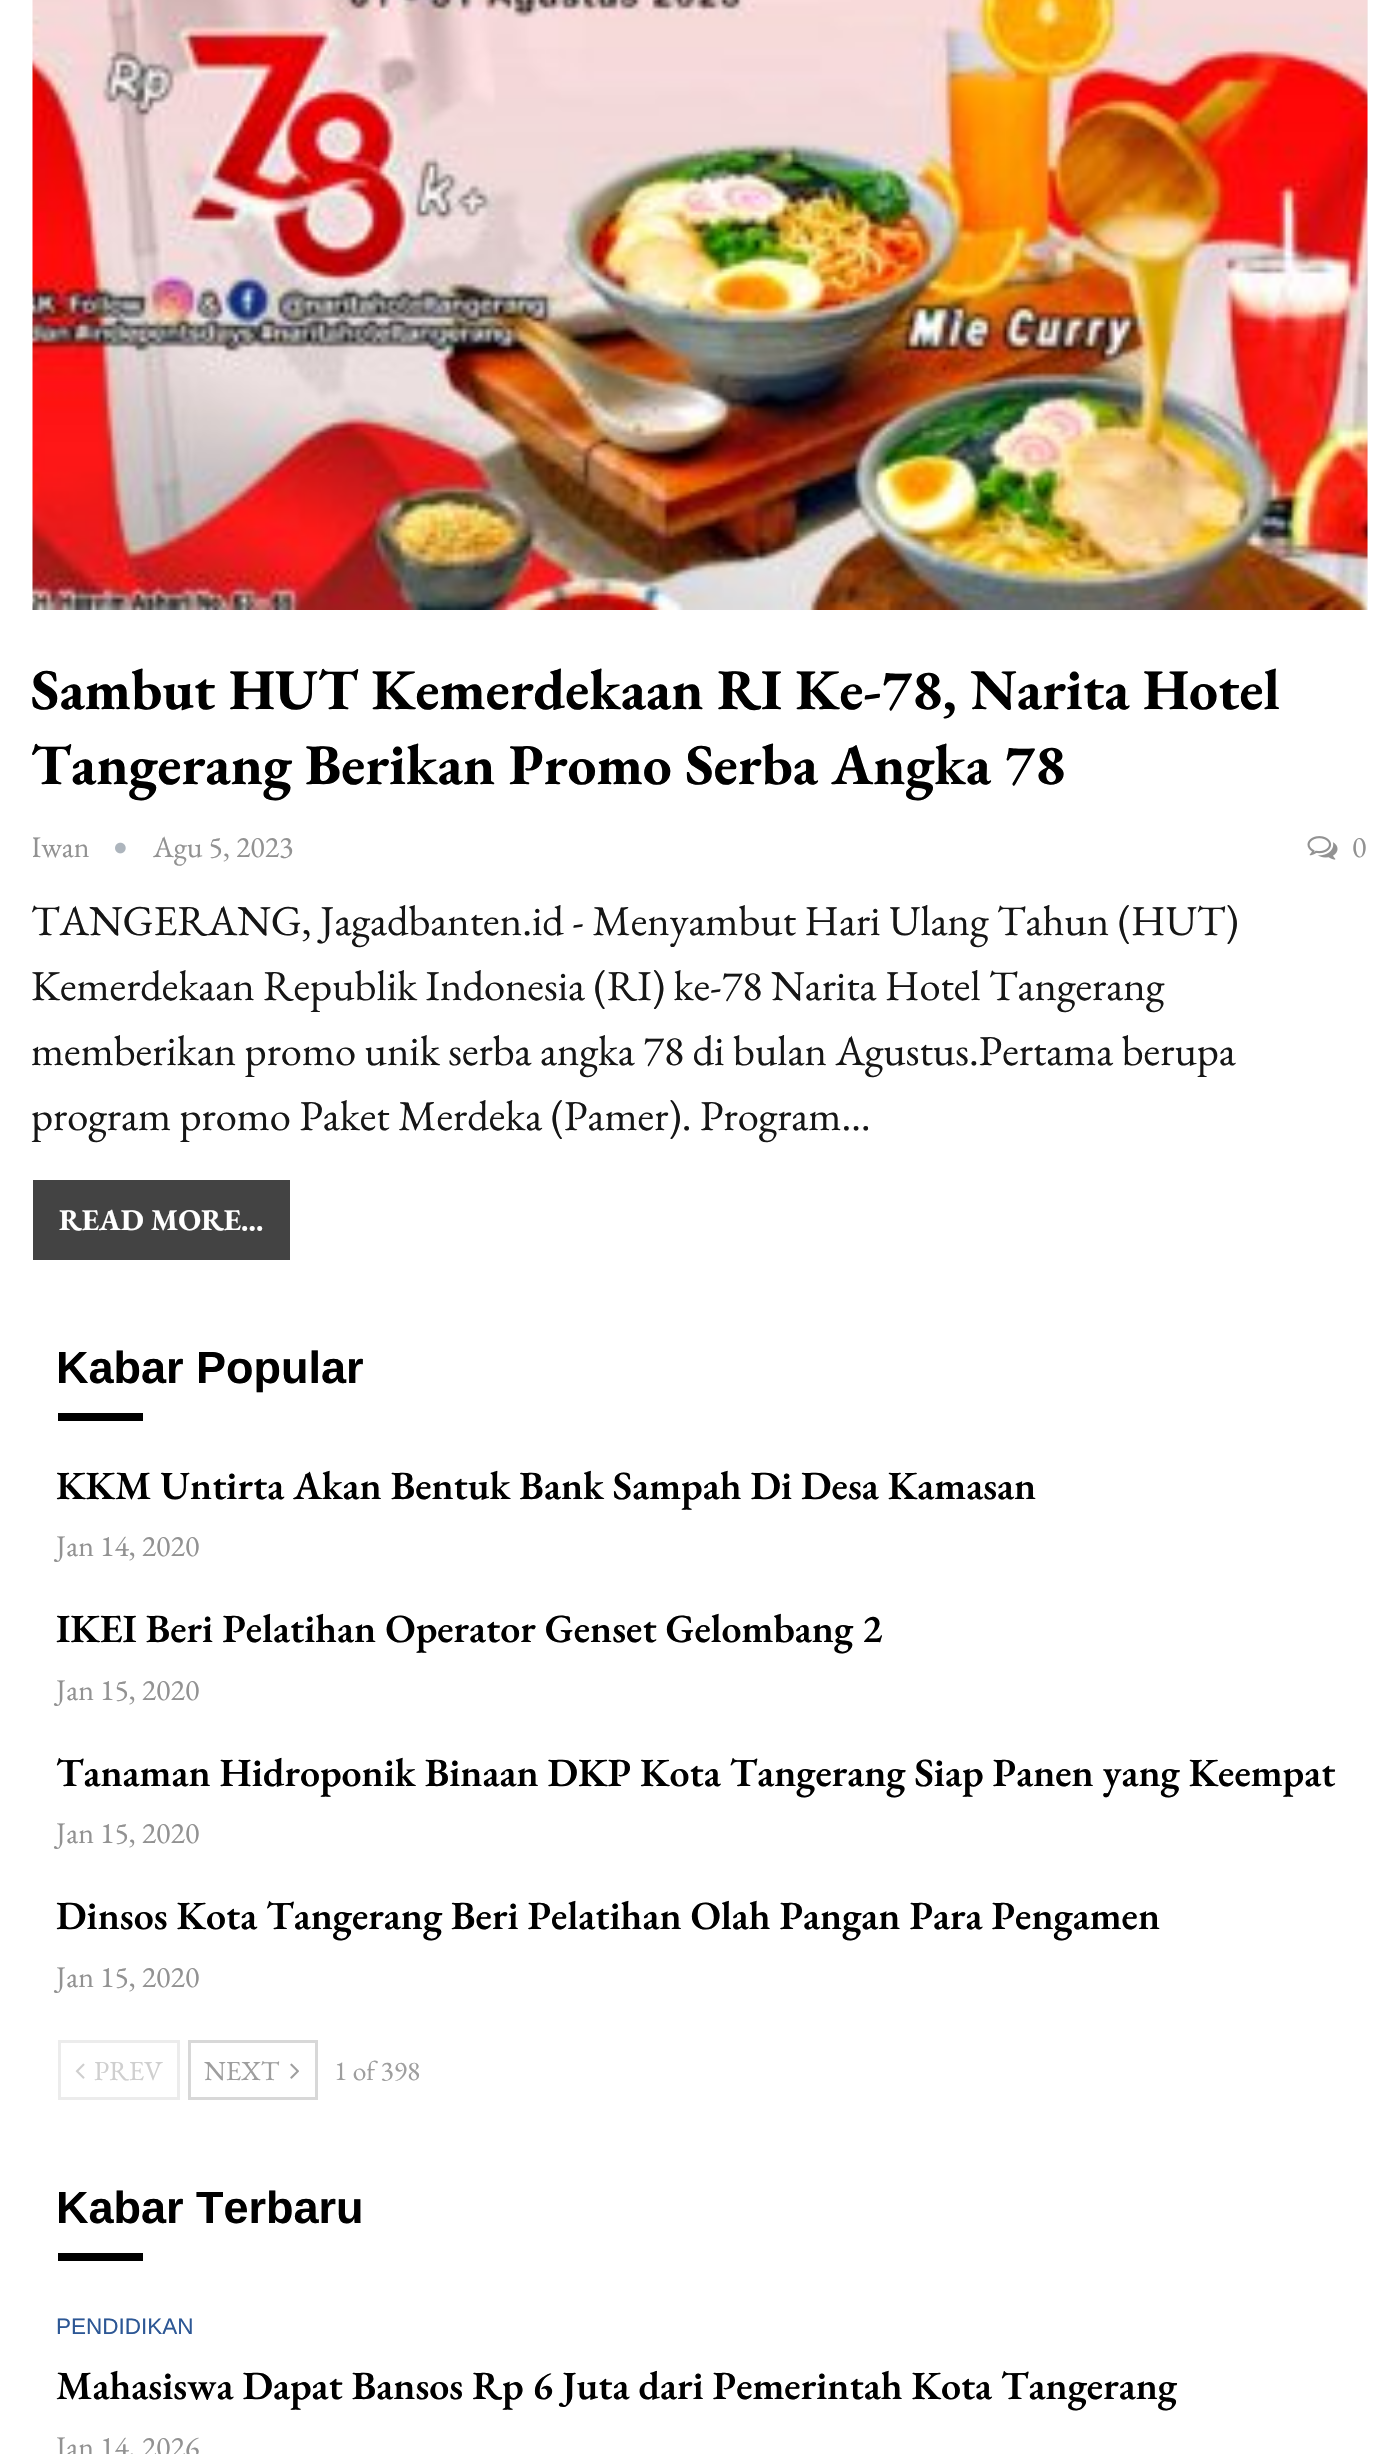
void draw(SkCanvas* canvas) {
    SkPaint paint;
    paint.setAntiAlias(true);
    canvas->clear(0xFFFFFFFF);
    paint.setColor(0xFFF5F5F5);
    canvas->drawRect(SkRect::MakeXYWH(1367, 0, 1, 610), paint);
    canvas->drawImageRect(SkImages::DeferredFromEncodedData(SkData::MakeFromFileName("img1.png")), SkRect::MakeXYWH(32, 0, 1336, 610), SkSamplingOptions());
    SkFont font1(fontMgr->matchFamilyStyle("EB Garamond", SkFontStyle::Bold()), 57.5f);
    font1.setSubpixel(true);
    paint.setColor(0xFF000000);
    canvas->drawString("Sambut HUT Kemerdekaan RI Ke-78, Narita Hotel", 31, 709, font1, paint);
    canvas->drawString("Tangerang Berikan Promo Serba Angka 78", 31, 784, font1, paint);
    canvas->save();
    canvas->clipRect(SkRect::MakeXYWH(33, 823, 95, 50));
    SkFont font2(fontMgr->matchFamilyStyle("EB Garamond", SkFontStyle::Normal()), 30);
    font2.setSubpixel(true);
    paint.setColor(0xFF929292);
    canvas->drawString("Iwan", 31, 857, font2, paint);
    canvas->restore();
    canvas->drawImageRect(SkImages::DeferredFromEncodedData(SkData::MakeFromFileName("img2.png")), SkRect::MakeXYWH(115, 842, 11, 12), SkSamplingOptions());
    canvas->drawString("Agu 5, 2023", 153, 857, font2, paint);
    canvas->drawImageRect(SkImages::DeferredFromEncodedData(SkData::MakeFromFileName("img3.png")), SkRect::MakeXYWH(1307, 836, 31, 24), SkSamplingOptions());
    canvas->drawString("0", 1352, 857, font2, paint);
    SkFont font3(fontMgr->matchFamilyStyle("EB Garamond", SkFontStyle::Normal()), 42.5f);
    font3.setSubpixel(true);
    paint.setColor(0xFF161616);
    canvas->drawString("TANGERANG, Jagadbanten.id - Menyambut Hari Ulang Tahun (HUT)", 31, 935, font3, paint);
    canvas->drawString("Kemerdekaan Republik Indonesia (RI) ke-78 Narita Hotel Tangerang", 31, 1000, font3, paint);
    canvas->drawString("memberikan promo unik serba angka 78 di bulan Agustus.Pertama berupa", 31, 1065, font3, paint);
    canvas->drawString("program promo Paket Merdeka (Pamer). Program…", 31, 1130, font3, paint);
    paint.setColor(0xFF434343);
    canvas->drawRect(SkRect::MakeXYWH(33, 1180, 257, 80), paint);
    SkFont font4(fontMgr->matchFamilyStyle("EB Garamond", SkFontStyle::Bold()), 30);
    font4.setSubpixel(true);
    paint.setColor(0xFFFFFFFF);
    canvas->drawString("READ MORE...", 59, 1230, font4, paint);
    SkFont font5(fontMgr->matchFamilyStyle("Liberation Sans", SkFontStyle::Bold()), 45);
    font5.setSubpixel(true);
    paint.setColor(0xFF000000);
    canvas->drawString("Kabar Popular", 56, 1383, font5, paint);
    canvas->drawRect(SkRect::MakeXYWH(58, 1413, 85, 8), paint);
    SkFont font6(fontMgr->matchFamilyStyle("EB Garamond", SkFontStyle(600, SkFontStyle::kNormal_Width, SkFontStyle::kUpright_Slant)), 40);
    font6.setSubpixel(true);
    canvas->drawString("KKM Untirta Akan Bentuk Bank Sampah Di Desa Kamasan", 56, 1499, font6, paint);
    paint.setColor(0xFF929292);
    canvas->drawString("Jan 14, 2020", 56, 1556, font2, paint);
    paint.setColor(0xFF000000);
    canvas->drawString("IKEI Beri Pelatihan Operator Genset Gelombang 2", 56, 1642, font6, paint);
    paint.setColor(0xFF929292);
    canvas->drawString("Jan 15, 2020", 56, 1700, font2, paint);
    paint.setColor(0xFF000000);
    canvas->drawString("Tanaman Hidroponik Binaan DKP Kota Tangerang Siap Panen yang Keempat", 56, 1786, font6, paint);
    paint.setColor(0xFF929292);
    canvas->drawString("Jan 15, 2020", 56, 1843, font2, paint);
    paint.setColor(0xFF000000);
    canvas->drawString("Dinsos Kota Tangerang Beri Pelatihan Olah Pangan Para Pengamen", 56, 1929, font6, paint);
    paint.setColor(0xFF929292);
    canvas->drawString("Jan 15, 2020", 56, 1987, font2, paint);
    paint.setStyle(SkPaint::kStroke_Style);
    paint.setStrokeWidth(3);
    paint.setColor(0xFFECECEC);
    canvas->drawRect(SkRect::MakeXYWH(59.5f, 2041.5f, 119, 57), paint);
    canvas->drawImageRect(SkImages::DeferredFromEncodedData(SkData::MakeFromFileName("img4.png")), SkRect::MakeXYWH(75, 2063, 10, 16), SkSamplingOptions());
    SkFont font7(fontMgr->matchFamilyStyle("EB Garamond", SkFontStyle::Normal()), 27.5f);
    font7.setSubpixel(true);
    paint.setStyle(SkPaint::kFill_Style);
    paint.setColor(0xFFCFCFCF);
    canvas->drawString("PREV", 94, 2080, font7, paint);
    paint.setStyle(SkPaint::kStroke_Style);
    paint.setColor(0xFFD8D8D8);
    canvas->drawRect(SkRect::MakeXYWH(189.5f, 2041.5f, 127, 57), paint);
    paint.setStyle(SkPaint::kFill_Style);
    paint.setColor(0xFF9E9E9E);
    canvas->drawString("NEXT", 204, 2080, font7, paint);
    canvas->drawImageRect(SkImages::DeferredFromEncodedData(SkData::MakeFromFileName("img5.png")), SkRect::MakeXYWH(290, 2063, 9, 16), SkSamplingOptions());
    canvas->drawString("1 of 398", 334, 2080, font7, paint);
    paint.setColor(0xFF000000);
    canvas->drawString("Kabar Terbaru", 56, 2223, font5, paint);
    canvas->drawRect(SkRect::MakeXYWH(58, 2253, 85, 8), paint);
    SkFont font8(fontMgr->matchFamilyStyle("Liberation Sans", SkFontStyle::Normal()), 22.5f);
    font8.setSubpixel(true);
    paint.setColor(0xFF2C5795);
    canvas->drawString("PENDIDIKAN", 56, 2334, font8, paint);
    paint.setColor(0xFF000000);
    canvas->drawString("Mahasiswa Dapat Bansos Rp 6 Juta dari Pemerintah Kota Tangerang", 56, 2399, font6, paint);
    paint.setColor(0xFF929292);
    canvas->drawString("Jan 14, 2026", 56, 2457, font2, paint);
}
